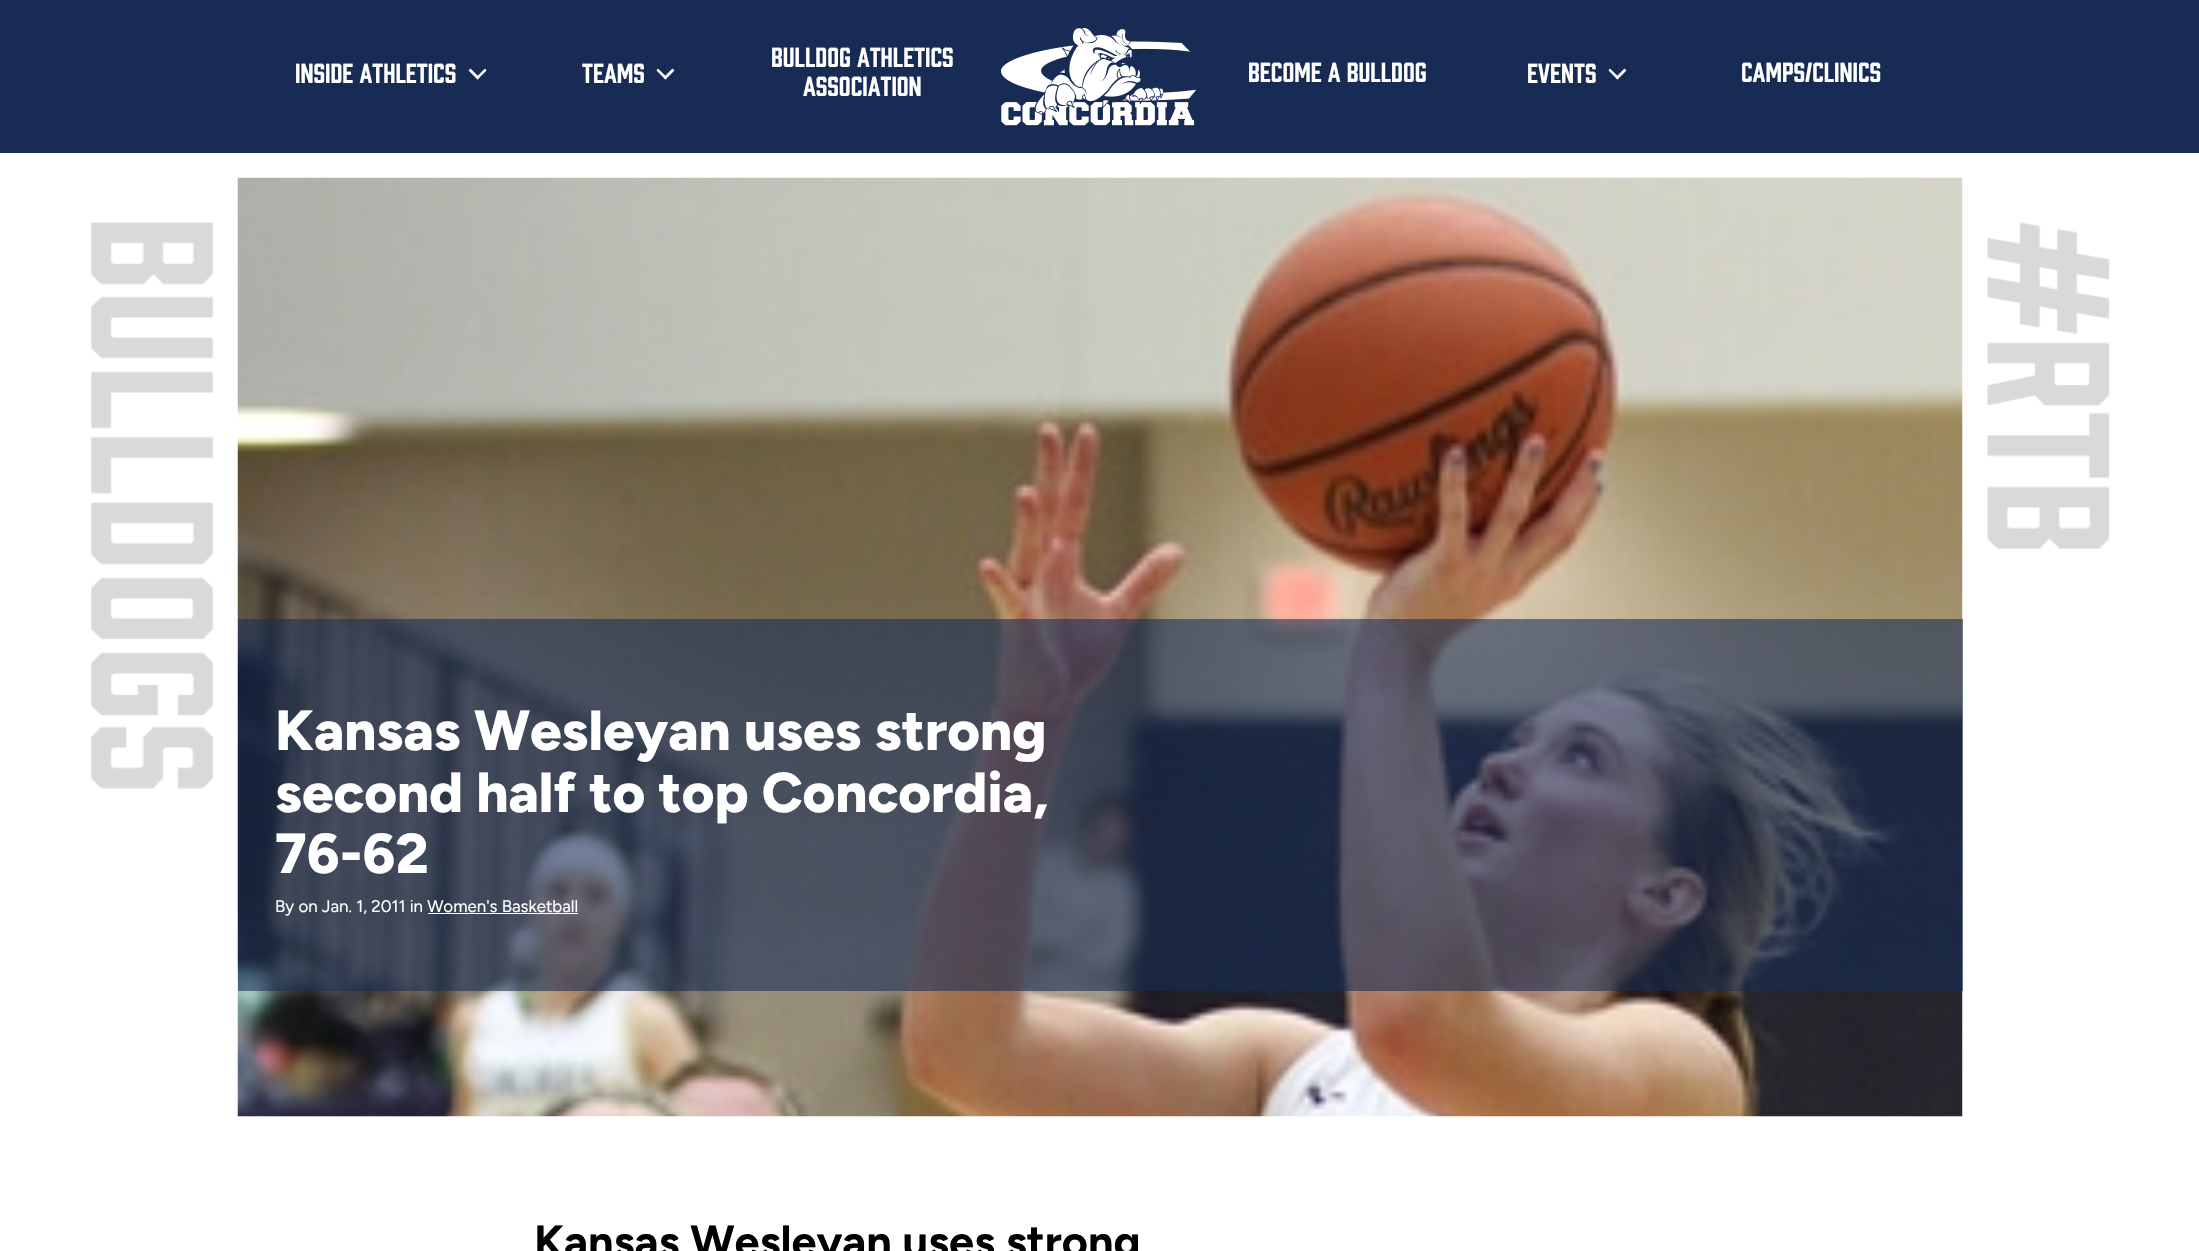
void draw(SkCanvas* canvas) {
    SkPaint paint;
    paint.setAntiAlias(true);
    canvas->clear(0xFFFFFFFF);
    paint.setColor(0xFF172B54);
    canvas->drawRect(SkRect::MakeXYWH(0, 0, 2199, 153), paint);
    SkFont font1(fontMgr->matchFamilyStyle("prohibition", SkFontStyle::Normal()), 25.25f);
    font1.setSubpixel(true);
    paint.setColor(0xFFFFFFFF);
    canvas->drawString("Inside Athletics", 295, 83, font1, paint);
    canvas->drawPath(SkPathBuilder().moveTo(485, 68.5f).lineTo(486.5f, 70.5f).lineTo(477.5f, 79.5f).lineTo(476, 77.5f).close().detach(), paint);
    canvas->drawPath(SkPathBuilder().moveTo(470.5f, 68.5f).lineTo(479.5f, 77.5f).lineTo(477.5f, 79.5f).lineTo(468.5f, 70.5f).close().detach(), paint);
    canvas->drawString("Teams", 582, 83, font1, paint);
    canvas->drawPath(SkPathBuilder().moveTo(672.5f, 68.5f).lineTo(674.5f, 70.5f).lineTo(665.5f, 79.5f).lineTo(663.5f, 77.5f).close().detach(), paint);
    canvas->drawPath(SkPathBuilder().moveTo(658, 68.5f).lineTo(667, 77.5f).lineTo(665.5f, 79.5f).lineTo(656.5f, 70.5f).close().detach(), paint);
    canvas->drawString("Bulldog Athletics", 771, 67, font1, paint);
    canvas->drawString("Association", 803, 96, font1, paint);
    canvas->drawImageRect(SkImages::DeferredFromEncodedData(SkData::MakeFromFileName("img1.png")), SkRect::MakeXYWH(1001, 28, 196, 98), SkSamplingOptions());
    canvas->drawString("Become a Bulldog", 1248, 82, font1, paint);
    canvas->drawString("Events", 1527, 83, font1, paint);
    canvas->drawPath(SkPathBuilder().moveTo(1624.5f, 68.5f).lineTo(1626.5f, 70.5f).lineTo(1617.5f, 79.5f).lineTo(1615.5f, 77.5f).close().detach(), paint);
    canvas->drawPath(SkPathBuilder().moveTo(1610, 68.5f).lineTo(1619, 77.5f).lineTo(1617.5f, 79.5f).lineTo(1608.5f, 70.5f).close().detach(), paint);
    canvas->drawString("Camps/Clinics", 1741, 82, font1, paint);
    canvas->drawImageRect(SkImages::DeferredFromEncodedData(SkData::MakeFromFileName("img2.png")), SkRect::MakeXYWH(91, 222, 2019, 567), SkSamplingOptions());
    canvas->drawImageRect(SkImages::DeferredFromEncodedData(SkData::MakeFromFileName("img3.png")), SkRect::MakeXYWH(237, 177, 1726, 940), SkSamplingOptions());
    paint.setColor(0x94172B54);
    canvas->drawRect(SkRect::MakeXYWH(238, 619, 1725, 372), paint);
    SkFont font2(fontMgr->matchFamilyStyle("Figtree", SkFontStyle(800, SkFontStyle::kNormal_Width, SkFontStyle::kUpright_Slant)), 56.25f);
    font2.setSubpixel(true);
    paint.setColor(0xFFFFFFFF);
    canvas->drawString("Kansas Wesleyan uses strong", 275, 750, font2, paint);
    canvas->drawString("second half to top Concordia,", 275, 812, font2, paint);
    canvas->drawString("76-62", 275, 873, font2, paint);
    SkFont font3(fontMgr->matchFamilyStyle("Figtree", SkFontStyle::Normal()), 16.9f);
    font3.setSubpixel(true);
    canvas->drawString("By on Jan. 1, 2011 in Women's Basketball", 275, 912, font3, paint);
    canvas->drawRect(SkRect::MakeXYWH(428, 913, 150, 1), paint);
    SkFont font4(fontMgr->matchFamilyStyle("Figtree", SkFontStyle::Bold()), 45);
    font4.setSubpixel(true);
    paint.setColor(0xFF000000);
    canvas->drawString("Kansas Wesleyan uses strong", 534, 1257, font4, paint);
}
